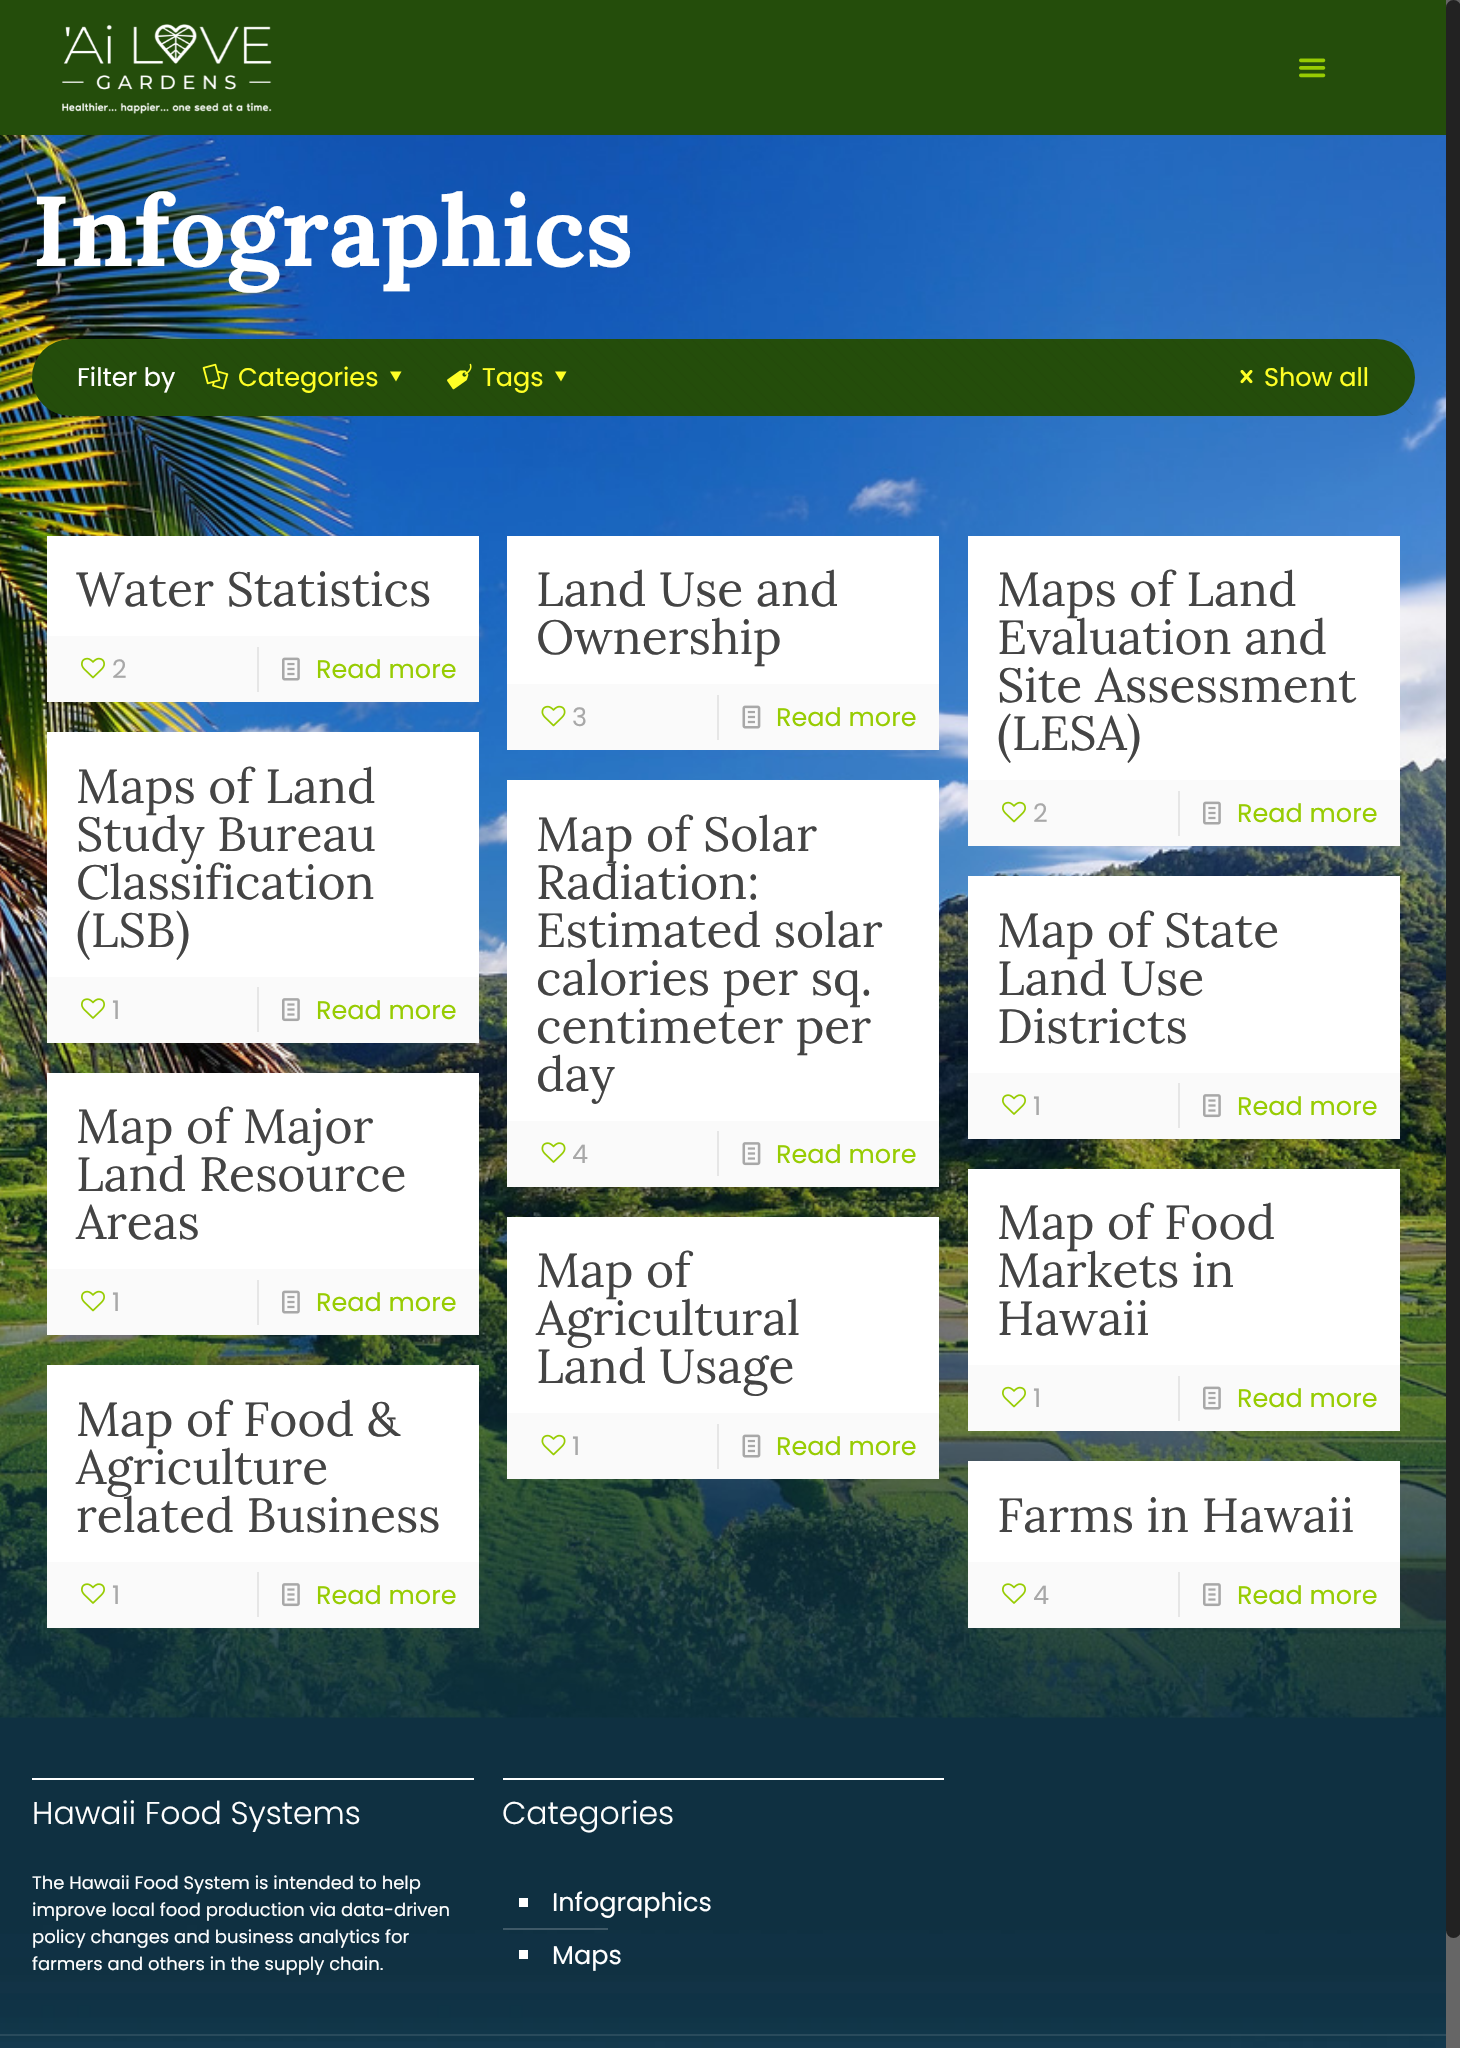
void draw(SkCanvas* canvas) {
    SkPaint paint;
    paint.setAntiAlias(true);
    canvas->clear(0xFFFFFFFF);
    canvas->drawImageRect(SkImages::DeferredFromEncodedData(SkData::MakeFromFileName("img1.png")), SkRect::MakeXYWH(0, 135, 1446, 1583), SkSamplingOptions());
    paint.setColor(0xFF244D0B);
    canvas->drawRect(SkRect::MakeXYWH(0, 0, 1446, 135), paint);
    canvas->drawImageRect(SkImages::DeferredFromEncodedData(SkData::MakeFromFileName("img2.png")), SkRect::MakeXYWH(62, 24, 210, 90), SkSamplingOptions());
    canvas->drawImageRect(SkImages::DeferredFromEncodedData(SkData::MakeFromFileName("img3.png")), SkRect::MakeXYWH(1299, 58, 27, 20), SkSamplingOptions());
    SkFont font1(fontMgr->matchFamilyStyle("Lora", SkFontStyle::Bold()), 99);
    font1.setSubpixel(true);
    paint.setColor(0xFFFFFFFF);
    canvas->drawString("Infographics", 32, 266, font1, paint);
    paint.setColor(0xFF244D0B);
    canvas->drawRoundRect(SkRect::MakeXYWH(32, 339, 1383, 77), 38.5f, 38.5f, paint);
    canvas->drawImageRect(SkImages::DeferredFromEncodedData(SkData::MakeFromFileName("img4.png")), SkRect::MakeXYWH(32, 339, 1382, 76), SkSamplingOptions());
    SkFont font2(fontMgr->matchFamilyStyle("Poppins", SkFontStyle::Normal()), 25.5f);
    font2.setSubpixel(true);
    paint.setColor(0xFFFFFFFF);
    canvas->drawString("Filter by", 77, 386, font2, paint);
    canvas->drawImageRect(SkImages::DeferredFromEncodedData(SkData::MakeFromFileName("img5.png")), SkRect::MakeXYWH(202, 363, 27, 27), SkSamplingOptions());
    paint.setColor(0xFFFFFF26);
    canvas->drawString("Categories", 238, 386, font2, paint);
    canvas->drawPath(SkPathBuilder().moveTo(401.5f, 371.5f).lineTo(396, 381.5f).lineTo(390, 371.5f).close().detach(), paint);
    canvas->drawImageRect(SkImages::DeferredFromEncodedData(SkData::MakeFromFileName("img6.png")), SkRect::MakeXYWH(447, 363, 25, 27), SkSamplingOptions());
    canvas->drawString("Tags", 482, 386, font2, paint);
    canvas->drawPath(SkPathBuilder().moveTo(566.5f, 371.5f).lineTo(561, 381.5f).lineTo(555, 371.5f).close().detach(), paint);
    canvas->drawImageRect(SkImages::DeferredFromEncodedData(SkData::MakeFromFileName("img7.png")), SkRect::MakeXYWH(1240, 370, 13, 14), SkSamplingOptions());
    canvas->drawString("Show all", 1264, 386, font2, paint);
    paint.setColor(0xFFFFFFFF);
    canvas->drawRect(SkRect::MakeXYWH(47, 536, 432, 100), paint);
    SkFont font3(fontMgr->matchFamilyStyle("Lora", SkFontStyle::Normal()), 48);
    font3.setSubpixel(true);
    paint.setColor(0xFF444444);
    canvas->drawString("Water Statistics", 76, 606, font3, paint);
    paint.setColor(0xFFFAFAFA);
    canvas->drawRect(SkRect::MakeXYWH(47, 636, 432, 66), paint);
    canvas->drawImageRect(SkImages::DeferredFromEncodedData(SkData::MakeFromFileName("img8.png")), SkRect::MakeXYWH(81, 657, 24, 22), SkSamplingOptions());
    paint.setColor(0xFFA8A8A8);
    canvas->drawString("2", 112, 678, font2, paint);
    paint.setColor(0xFFE6E6E6);
    canvas->drawRect(SkRect::MakeXYWH(257, 647, 2, 45), paint);
    canvas->drawImageRect(SkImages::DeferredFromEncodedData(SkData::MakeFromFileName("img9.png")), SkRect::MakeXYWH(282, 657, 18, 24), SkSamplingOptions());
    paint.setColor(0xFF97CC02);
    canvas->drawString("Read more", 316, 678, font2, paint);
    paint.setColor(0xFFFFFFFF);
    canvas->drawRect(SkRect::MakeXYWH(507, 536, 432, 148), paint);
    paint.setColor(0xFF444444);
    canvas->drawString("Land Use and", 536, 606, font3, paint);
    canvas->drawString("Ownership", 536, 654, font3, paint);
    paint.setColor(0xFFFAFAFA);
    canvas->drawRect(SkRect::MakeXYWH(507, 684, 432, 66), paint);
    canvas->drawImageRect(SkImages::DeferredFromEncodedData(SkData::MakeFromFileName("img10.png")), SkRect::MakeXYWH(541, 705, 25, 22), SkSamplingOptions());
    paint.setColor(0xFFA8A8A8);
    canvas->drawString("3", 572, 726, font2, paint);
    paint.setColor(0xFFE6E6E6);
    canvas->drawRect(SkRect::MakeXYWH(717, 695, 2, 45), paint);
    canvas->drawImageRect(SkImages::DeferredFromEncodedData(SkData::MakeFromFileName("img11.png")), SkRect::MakeXYWH(742, 705, 19, 24), SkSamplingOptions());
    paint.setColor(0xFF97CC02);
    canvas->drawString("Read more", 776, 726, font2, paint);
    paint.setColor(0xFFFFFFFF);
    canvas->drawRect(SkRect::MakeXYWH(968, 536, 432, 244), paint);
    paint.setColor(0xFF444444);
    canvas->drawString("Maps of Land", 997, 606, font3, paint);
    canvas->drawString("Evaluation and", 997, 654, font3, paint);
    canvas->drawString("Site Assessment", 997, 702, font3, paint);
    canvas->drawString("(LESA)", 997, 750, font3, paint);
    paint.setColor(0xFFFAFAFA);
    canvas->drawRect(SkRect::MakeXYWH(968, 780, 432, 66), paint);
    canvas->drawImageRect(SkImages::DeferredFromEncodedData(SkData::MakeFromFileName("img8.png")), SkRect::MakeXYWH(1002, 801, 24, 22), SkSamplingOptions());
    paint.setColor(0xFFA8A8A8);
    canvas->drawString("2", 1033, 822, font2, paint);
    paint.setColor(0xFFE6E6E6);
    canvas->drawRect(SkRect::MakeXYWH(1178, 791, 2, 45), paint);
    canvas->drawImageRect(SkImages::DeferredFromEncodedData(SkData::MakeFromFileName("img9.png")), SkRect::MakeXYWH(1203, 801, 18, 24), SkSamplingOptions());
    paint.setColor(0xFF97CC02);
    canvas->drawString("Read more", 1237, 822, font2, paint);
    paint.setColor(0xFFFFFFFF);
    canvas->drawRect(SkRect::MakeXYWH(47, 732, 432, 245), paint);
    paint.setColor(0xFF444444);
    canvas->drawString("Maps of Land", 76, 803, font3, paint);
    canvas->drawString("Study Bureau", 76, 851, font3, paint);
    canvas->drawString("Classification", 76, 899, font3, paint);
    canvas->drawString("(LSB)", 76, 947, font3, paint);
    paint.setColor(0xFFFAFAFA);
    canvas->drawRect(SkRect::MakeXYWH(47, 977, 432, 66), paint);
    canvas->drawImageRect(SkImages::DeferredFromEncodedData(SkData::MakeFromFileName("img12.png")), SkRect::MakeXYWH(81, 998, 24, 21), SkSamplingOptions());
    paint.setColor(0xFFA8A8A8);
    canvas->drawString("1", 112, 1019, font2, paint);
    paint.setColor(0xFFE6E6E6);
    canvas->drawRect(SkRect::MakeXYWH(257, 987, 2, 45), paint);
    canvas->drawImageRect(SkImages::DeferredFromEncodedData(SkData::MakeFromFileName("img13.png")), SkRect::MakeXYWH(282, 998, 18, 24), SkSamplingOptions());
    paint.setColor(0xFF97CC02);
    canvas->drawString("Read more", 316, 1019, font2, paint);
    paint.setColor(0xFFFFFFFF);
    canvas->drawRect(SkRect::MakeXYWH(507, 780, 432, 341), paint);
    paint.setColor(0xFF444444);
    canvas->drawString("Map of Solar", 536, 851, font3, paint);
    canvas->drawString("Radiation:", 536, 899, font3, paint);
    canvas->drawString("Estimated solar", 536, 947, font3, paint);
    canvas->drawString("calories per sq.", 536, 995, font3, paint);
    canvas->drawString("centimeter per", 536, 1043, font3, paint);
    canvas->drawString("day", 536, 1091, font3, paint);
    paint.setColor(0xFFFAFAFA);
    canvas->drawRect(SkRect::MakeXYWH(507, 1121, 432, 66), paint);
    canvas->drawImageRect(SkImages::DeferredFromEncodedData(SkData::MakeFromFileName("img14.png")), SkRect::MakeXYWH(541, 1142, 25, 21), SkSamplingOptions());
    paint.setColor(0xFFA8A8A8);
    canvas->drawString("4", 572, 1163, font2, paint);
    paint.setColor(0xFFE6E6E6);
    canvas->drawRect(SkRect::MakeXYWH(717, 1131, 2, 45), paint);
    canvas->drawImageRect(SkImages::DeferredFromEncodedData(SkData::MakeFromFileName("img15.png")), SkRect::MakeXYWH(742, 1142, 19, 24), SkSamplingOptions());
    paint.setColor(0xFF97CC02);
    canvas->drawString("Read more", 776, 1163, font2, paint);
    paint.setColor(0xFFFFFFFF);
    canvas->drawRect(SkRect::MakeXYWH(968, 876, 432, 197), paint);
    paint.setColor(0xFF444444);
    canvas->drawString("Map of State", 997, 947, font3, paint);
    canvas->drawString("Land Use", 997, 995, font3, paint);
    canvas->drawString("Districts", 997, 1043, font3, paint);
    paint.setColor(0xFFFAFAFA);
    canvas->drawRect(SkRect::MakeXYWH(968, 1073, 432, 66), paint);
    canvas->drawImageRect(SkImages::DeferredFromEncodedData(SkData::MakeFromFileName("img12.png")), SkRect::MakeXYWH(1002, 1094, 24, 21), SkSamplingOptions());
    paint.setColor(0xFFA8A8A8);
    canvas->drawString("1", 1033, 1115, font2, paint);
    paint.setColor(0xFFE6E6E6);
    canvas->drawRect(SkRect::MakeXYWH(1178, 1083, 2, 45), paint);
    canvas->drawImageRect(SkImages::DeferredFromEncodedData(SkData::MakeFromFileName("img13.png")), SkRect::MakeXYWH(1203, 1094, 18, 24), SkSamplingOptions());
    paint.setColor(0xFF97CC02);
    canvas->drawString("Read more", 1237, 1115, font2, paint);
    paint.setColor(0xFFFFFFFF);
    canvas->drawRect(SkRect::MakeXYWH(47, 1073, 432, 196), paint);
    paint.setColor(0xFF444444);
    canvas->drawString("Map of Major", 76, 1143, font3, paint);
    canvas->drawString("Land Resource", 76, 1191, font3, paint);
    canvas->drawString("Areas", 76, 1239, font3, paint);
    paint.setColor(0xFFFAFAFA);
    canvas->drawRect(SkRect::MakeXYWH(47, 1269, 432, 66), paint);
    canvas->drawImageRect(SkImages::DeferredFromEncodedData(SkData::MakeFromFileName("img8.png")), SkRect::MakeXYWH(81, 1290, 24, 22), SkSamplingOptions());
    paint.setColor(0xFFA8A8A8);
    canvas->drawString("1", 112, 1311, font2, paint);
    paint.setColor(0xFFE6E6E6);
    canvas->drawRect(SkRect::MakeXYWH(257, 1280, 2, 45), paint);
    canvas->drawImageRect(SkImages::DeferredFromEncodedData(SkData::MakeFromFileName("img9.png")), SkRect::MakeXYWH(282, 1290, 18, 24), SkSamplingOptions());
    paint.setColor(0xFF97CC02);
    canvas->drawString("Read more", 316, 1311, font2, paint);
    paint.setColor(0xFFFFFFFF);
    canvas->drawRect(SkRect::MakeXYWH(507, 1217, 432, 196), paint);
    paint.setColor(0xFF444444);
    canvas->drawString("Map of", 536, 1287, font3, paint);
    canvas->drawString("Agricultural", 536, 1335, font3, paint);
    canvas->drawString("Land Usage", 536, 1383, font3, paint);
    paint.setColor(0xFFFAFAFA);
    canvas->drawRect(SkRect::MakeXYWH(507, 1413, 432, 66), paint);
    canvas->drawImageRect(SkImages::DeferredFromEncodedData(SkData::MakeFromFileName("img10.png")), SkRect::MakeXYWH(541, 1434, 25, 22), SkSamplingOptions());
    paint.setColor(0xFFA8A8A8);
    canvas->drawString("1", 572, 1455, font2, paint);
    paint.setColor(0xFFE6E6E6);
    canvas->drawRect(SkRect::MakeXYWH(717, 1424, 2, 45), paint);
    canvas->drawImageRect(SkImages::DeferredFromEncodedData(SkData::MakeFromFileName("img11.png")), SkRect::MakeXYWH(742, 1434, 19, 24), SkSamplingOptions());
    paint.setColor(0xFF97CC02);
    canvas->drawString("Read more", 776, 1455, font2, paint);
    paint.setColor(0xFFFFFFFF);
    canvas->drawRect(SkRect::MakeXYWH(968, 1169, 432, 196), paint);
    paint.setColor(0xFF444444);
    canvas->drawString("Map of Food", 997, 1239, font3, paint);
    canvas->drawString("Markets in", 997, 1287, font3, paint);
    canvas->drawString("Hawaii", 997, 1335, font3, paint);
    paint.setColor(0xFFFAFAFA);
    canvas->drawRect(SkRect::MakeXYWH(968, 1365, 432, 66), paint);
    canvas->drawImageRect(SkImages::DeferredFromEncodedData(SkData::MakeFromFileName("img8.png")), SkRect::MakeXYWH(1002, 1386, 24, 22), SkSamplingOptions());
    paint.setColor(0xFFA8A8A8);
    canvas->drawString("1", 1033, 1407, font2, paint);
    paint.setColor(0xFFE6E6E6);
    canvas->drawRect(SkRect::MakeXYWH(1178, 1376, 2, 45), paint);
    canvas->drawImageRect(SkImages::DeferredFromEncodedData(SkData::MakeFromFileName("img9.png")), SkRect::MakeXYWH(1203, 1386, 18, 24), SkSamplingOptions());
    paint.setColor(0xFF97CC02);
    canvas->drawString("Read more", 1237, 1407, font2, paint);
    paint.setColor(0xFFFFFFFF);
    canvas->drawRect(SkRect::MakeXYWH(47, 1365, 432, 197), paint);
    paint.setColor(0xFF444444);
    canvas->drawString("Map of Food &", 76, 1436, font3, paint);
    canvas->drawString("Agriculture", 76, 1484, font3, paint);
    canvas->drawString("related Business", 76, 1532, font3, paint);
    paint.setColor(0xFFFAFAFA);
    canvas->drawRect(SkRect::MakeXYWH(47, 1562, 432, 66), paint);
    canvas->drawImageRect(SkImages::DeferredFromEncodedData(SkData::MakeFromFileName("img12.png")), SkRect::MakeXYWH(81, 1583, 24, 21), SkSamplingOptions());
    paint.setColor(0xFFA8A8A8);
    canvas->drawString("1", 112, 1604, font2, paint);
    paint.setColor(0xFFE6E6E6);
    canvas->drawRect(SkRect::MakeXYWH(257, 1572, 2, 45), paint);
    canvas->drawImageRect(SkImages::DeferredFromEncodedData(SkData::MakeFromFileName("img13.png")), SkRect::MakeXYWH(282, 1583, 18, 24), SkSamplingOptions());
    paint.setColor(0xFF97CC02);
    canvas->drawString("Read more", 316, 1604, font2, paint);
    paint.setColor(0xFFFFFFFF);
    canvas->drawRect(SkRect::MakeXYWH(968, 1461, 432, 101), paint);
    paint.setColor(0xFF444444);
    canvas->drawString("Farms in Hawaii", 997, 1532, font3, paint);
    paint.setColor(0xFFFAFAFA);
    canvas->drawRect(SkRect::MakeXYWH(968, 1562, 432, 66), paint);
    canvas->drawImageRect(SkImages::DeferredFromEncodedData(SkData::MakeFromFileName("img12.png")), SkRect::MakeXYWH(1002, 1583, 24, 21), SkSamplingOptions());
    paint.setColor(0xFFA8A8A8);
    canvas->drawString("4", 1033, 1604, font2, paint);
    paint.setColor(0xFFE6E6E6);
    canvas->drawRect(SkRect::MakeXYWH(1178, 1572, 2, 45), paint);
    canvas->drawImageRect(SkImages::DeferredFromEncodedData(SkData::MakeFromFileName("img13.png")), SkRect::MakeXYWH(1203, 1583, 18, 24), SkSamplingOptions());
    paint.setColor(0xFF97CC02);
    canvas->drawString("Read more", 1237, 1604, font2, paint);
    canvas->drawImageRect(SkImages::DeferredFromEncodedData(SkData::MakeFromFileName("img16.png")), SkRect::MakeXYWH(0, 1717, 1446, 331), SkSamplingOptions());
    paint.setColor(0xFFFFFFFF);
    canvas->drawRect(SkRect::MakeXYWH(32, 1778, 442, 2), paint);
    SkFont font4(fontMgr->matchFamilyStyle("Poppins", SkFontStyle(300, SkFontStyle::kNormal_Width, SkFontStyle::kUpright_Slant)), 31.5f);
    font4.setSubpixel(true);
    canvas->drawString("Hawaii Food Systems", 32, 1824, font4, paint);
    SkFont font5(fontMgr->matchFamilyStyle("Poppins", SkFontStyle::Normal()), 18);
    font5.setSubpixel(true);
    canvas->drawString("The Hawaii Food System is intended to help", 32, 1889, font5, paint);
    canvas->drawString("improve local food production via data-driven", 32, 1916, font5, paint);
    canvas->drawString("policy changes and business analytics for", 32, 1943, font5, paint);
    canvas->drawString("farmers and others in the supply chain.", 32, 1970, font5, paint);
    canvas->drawRect(SkRect::MakeXYWH(503, 1778, 441, 2), paint);
    canvas->drawString("Categories", 502, 1824, font4, paint);
    canvas->drawRect(SkRect::MakeXYWH(519, 1898, 9, 9), paint);
    canvas->drawString("Infographics", 552, 1911, font2, paint);
    paint.setColor(0xFF3F5967);
    canvas->drawRect(SkRect::MakeXYWH(503, 1928, 105, 2), paint);
    paint.setColor(0xFFFFFFFF);
    canvas->drawRect(SkRect::MakeXYWH(519, 1950, 9, 9), paint);
    canvas->drawString("Maps", 552, 1964, font2, paint);
    paint.setColor(0xFF294B5C);
    canvas->drawRect(SkRect::MakeXYWH(0, 2034, 1446, 2), paint);
    paint.setColor(0xFF666666);
    canvas->drawRect(SkRect::MakeXYWH(1446, 0, 14, 2048), paint);
    paint.setColor(0xFF222222);
    canvas->drawRoundRect(SkRect::MakeXYWH(1446, 0, 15, 1938), 7.5f, 7.5f, paint);
}
